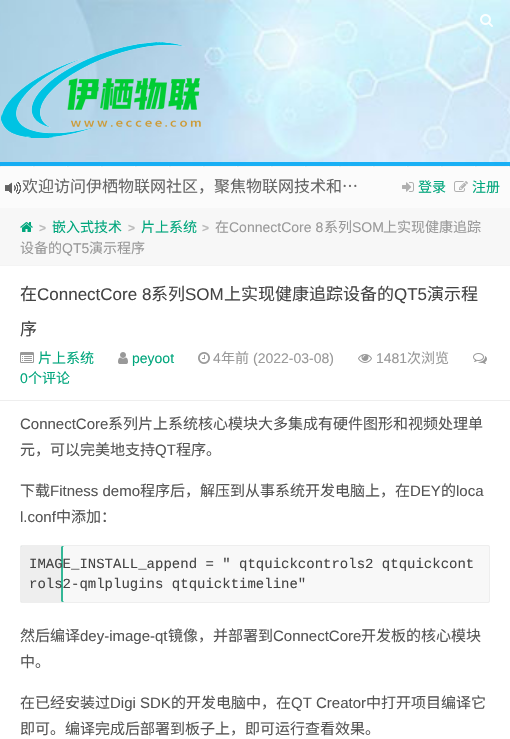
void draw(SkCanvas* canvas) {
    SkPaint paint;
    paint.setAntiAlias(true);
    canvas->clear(0xFFFFFFFF);
    canvas->drawImageRect(SkImages::DeferredFromEncodedData(SkData::MakeFromFileName("img1.png")), SkRect::MakeXYWH(0, 166, 510, 1), SkSamplingOptions());
    canvas->drawImageRect(SkImages::DeferredFromEncodedData(SkData::MakeFromFileName("img2.png")), SkRect::MakeXYWH(0, 0, 510, 166), SkSamplingOptions());
    paint.setColor(0xE603A9F4);
    canvas->drawRect(SkRect::MakeXYWH(0, 162, 510, 4), paint);
    canvas->drawImageRect(SkImages::DeferredFromEncodedData(SkData::MakeFromFileName("img3.png")), SkRect::MakeXYWH(480, 14, 13, 13), SkSamplingOptions());
    canvas->drawImageRect(SkImages::DeferredFromEncodedData(SkData::MakeFromFileName("img4.png")), SkRect::MakeXYWH(1, 42, 200, 96), SkSamplingOptions());
    paint.setColor(0xFFFBFBFB);
    canvas->drawRect(SkRect::MakeXYWH(0, 167, 510, 41), paint);
    canvas->drawImageRect(SkImages::DeferredFromEncodedData(SkData::MakeFromFileName("img5.png")), SkRect::MakeXYWH(5, 182, 16, 12), SkSamplingOptions());
    SkFont font1(fontMgr->matchFamilyStyle("Noto Sans CJK SC", SkFontStyle::Normal()), 16);
    font1.setSubpixel(true);
    paint.setColor(0xFF666666);
    canvas->drawString("欢迎访问伊栖物联网社区，聚焦物联网技术和…", 22, 192, font1, paint);
    canvas->drawImageRect(SkImages::DeferredFromEncodedData(SkData::MakeFromFileName("img6.png")), SkRect::MakeXYWH(402, 182, 12, 10), SkSamplingOptions());
    SkFont font2(fontMgr->matchFamilyStyle("Noto Sans CJK SC", SkFontStyle::Normal()), 14);
    font2.setSubpixel(true);
    paint.setColor(0xFF00A67C);
    canvas->drawString("登录", 418, 192, font2, paint);
    canvas->drawImageRect(SkImages::DeferredFromEncodedData(SkData::MakeFromFileName("img7.png")), SkRect::MakeXYWH(454, 181, 14, 11), SkSamplingOptions());
    canvas->drawString("注册", 472, 192, font2, paint);
    paint.setColor(0xFFF4F4F4);
    canvas->drawRect(SkRect::MakeXYWH(0, 265, 510, 1), paint);
    paint.setColor(0xFFF7F7F7);
    canvas->drawRect(SkRect::MakeXYWH(0, 208, 510, 57), paint);
    canvas->drawImageRect(SkImages::DeferredFromEncodedData(SkData::MakeFromFileName("img8.png")), SkRect::MakeXYWH(20, 222, 13, 10), SkSamplingOptions());
    SkFont font3(fontMgr->matchFamilyStyle("Liberation Sans", SkFontStyle::Bold()), 12);
    font3.setSubpixel(true);
    paint.setColor(0xFFBBBBBB);
    canvas->drawString(">", 39, 232, font3, paint);
    paint.setColor(0xFF00A67C);
    canvas->drawString("嵌入式技术", 52, 232, font2, paint);
    paint.setColor(0xFFBBBBBB);
    canvas->drawString(">", 128, 232, font3, paint);
    paint.setColor(0xFF00A67C);
    canvas->drawString("片上系统", 141, 232, font2, paint);
    paint.setColor(0xFFBBBBBB);
    canvas->drawString(">", 202, 232, font3, paint);
    paint.setColor(0xFF999999);
    canvas->drawString("在", 215, 232, font2, paint);
    SkFont font4(fontMgr->matchFamilyStyle("Liberation Sans", SkFontStyle::Normal()), 14);
    font4.setSubpixel(true);
    canvas->drawString("ConnectCore 8", 229, 232, font4, paint);
    canvas->drawString("系列", 324, 232, font2, paint);
    canvas->drawString("SOM", 352, 232, font4, paint);
    canvas->drawString("上实现健康追踪", 383, 232, font2, paint);
    canvas->drawString("设备的", 20, 253, font2, paint);
    canvas->drawString("QT5", 62, 253, font4, paint);
    canvas->drawString("演示程序", 89, 253, font2, paint);
    paint.setColor(0xFFEEEEEE);
    canvas->drawRect(SkRect::MakeXYWH(0, 400, 510, 1), paint);
    SkFont font5(fontMgr->matchFamilyStyle("Noto Sans CJK SC", SkFontStyle::Normal()), 17);
    font5.setSubpixel(true);
    paint.setColor(0xFF444444);
    canvas->drawString("在", 20, 300, font5, paint);
    SkFont font6(fontMgr->matchFamilyStyle("Liberation Sans", SkFontStyle::Normal()), 17);
    font6.setSubpixel(true);
    canvas->drawString("ConnectCore 8", 37, 300, font6, paint);
    canvas->drawString("系列", 151, 300, font5, paint);
    canvas->drawString("SOM", 185, 300, font6, paint);
    canvas->drawString("上实现健康追踪设备的", 224, 300, font5, paint);
    canvas->drawString("QT5", 394, 300, font6, paint);
    canvas->drawString("演示程", 427, 300, font5, paint);
    canvas->drawString("序", 20, 335, font5, paint);
    canvas->drawImageRect(SkImages::DeferredFromEncodedData(SkData::MakeFromFileName("img9.png")), SkRect::MakeXYWH(20, 352, 14, 11), SkSamplingOptions());
    paint.setColor(0xFF00A67C);
    canvas->drawString("片上系统", 38, 363, font2, paint);
    canvas->drawImageRect(SkImages::DeferredFromEncodedData(SkData::MakeFromFileName("img10.png")), SkRect::MakeXYWH(118, 352, 10, 12), SkSamplingOptions());
    canvas->drawString("peyoot", 132, 363, font4, paint);
    canvas->drawImageRect(SkImages::DeferredFromEncodedData(SkData::MakeFromFileName("img11.png")), SkRect::MakeXYWH(198, 352, 12, 12), SkSamplingOptions());
    paint.setColor(0xFF999999);
    canvas->drawString("4", 213, 363, font4, paint);
    canvas->drawString("年前", 221, 363, font2, paint);
    canvas->drawString("(2022-03-08)", 253, 363, font4, paint);
    canvas->drawImageRect(SkImages::DeferredFromEncodedData(SkData::MakeFromFileName("img12.png")), SkRect::MakeXYWH(358, 354, 14, 9), SkSamplingOptions());
    canvas->drawString("1481", 376, 363, font4, paint);
    canvas->drawString("次浏览", 407, 363, font2, paint);
    canvas->drawImageRect(SkImages::DeferredFromEncodedData(SkData::MakeFromFileName("img13.png")), SkRect::MakeXYWH(473, 353, 14, 11), SkSamplingOptions());
    paint.setColor(0xFF00A67C);
    canvas->drawString("0", 20, 383, font4, paint);
    canvas->drawString("个评论", 28, 383, font2, paint);
    SkFont font7(fontMgr->matchFamilyStyle("Liberation Sans", SkFontStyle::Normal()), 15);
    font7.setSubpixel(true);
    paint.setColor(0xFF555555);
    canvas->drawString("ConnectCore", 20, 429, font7, paint);
    SkFont font8(fontMgr->matchFamilyStyle("Noto Sans CJK SC", SkFontStyle::Normal()), 15);
    font8.setSubpixel(true);
    canvas->drawString("系列片上系统核心模块大多集成有硬件图形和视频处理单", 108, 429, font8, paint);
    canvas->drawString("元，可以完美地支持", 20, 455, font8, paint);
    canvas->drawString("QT", 155, 455, font7, paint);
    canvas->drawString("程序。", 176, 455, font8, paint);
    canvas->drawString("下载", 20, 496, font8, paint);
    canvas->drawString("Fitness demo", 50, 496, font7, paint);
    canvas->drawString("程序后，解压到从事系统开发电脑上，在", 140, 496, font8, paint);
    canvas->drawString("DEY", 410, 496, font7, paint);
    canvas->drawString("的", 441, 496, font8, paint);
    canvas->drawString("loca", 456, 496, font7, paint);
    canvas->drawString("l.conf", 20, 522, font7, paint);
    canvas->drawString("中添加：", 56, 522, font8, paint);
    paint.setColor(0xFFF8F8F8);
    canvas->drawRoundRect(SkRect::MakeXYWH(20, 545, 470, 58), 2, 2, paint);
    paint.setColor(0xFF33B796);
    canvas->drawPath(SkPathBuilder().moveTo(22, 546).cubicTo(21, 546, 21, 546, 21, 547).lineTo(21, 601).cubicTo(21, 602, 21, 602, 22, 602).lineTo(64, 602).lineTo(63, 601).lineTo(63, 547).lineTo(64, 546).close().detach(), paint);
    paint.setColor(0xFFEEEEEE);
    canvas->drawPath(SkPathBuilder().moveTo(22, 546).cubicTo(21, 546, 21, 546, 21, 547).lineTo(21, 601).cubicTo(21, 602, 21, 602, 22, 602).lineTo(62, 602).lineTo(61, 601).lineTo(61, 547).lineTo(62, 546).close().detach(), paint);
    paint.setStyle(SkPaint::kStroke_Style);
    paint.setStrokeWidth(1);
    canvas->drawRoundRect(SkRect::MakeXYWH(20.5f, 545.5f, 469, 57), 1.5f, 1.5f, paint);
    SkFont font9(fontMgr->matchFamilyStyle("Liberation Mono", SkFontStyle::Normal()), 14);
    font9.setSubpixel(true);
    paint.setStyle(SkPaint::kFill_Style);
    paint.setColor(0xFF444444);
    canvas->drawString("IMAGE_INSTALL_append = \" qtquickcontrols2 qtquickcont", 29, 568, font9, paint);
    canvas->drawString("rols2-qmlplugins qtquicktimeline\"", 29, 588, font9, paint);
    paint.setColor(0xFF555555);
    canvas->drawString("然后编译", 20, 641, font8, paint);
    canvas->drawString("dey-image-qt", 80, 641, font7, paint);
    canvas->drawString("镜像，并部署到", 168, 641, font8, paint);
    canvas->drawString("ConnectCore", 273, 641, font7, paint);
    canvas->drawString("开发板的核心模块", 361, 641, font8, paint);
    canvas->drawString("中。", 20, 667, font8, paint);
    canvas->drawString("在已经安装过", 20, 708, font8, paint);
    canvas->drawString("Digi SDK", 110, 708, font7, paint);
    canvas->drawString("的开发电脑中，在", 171, 708, font8, paint);
    canvas->drawString("QT Creator", 291, 708, font7, paint);
    canvas->drawString("中打开项目编译它", 366, 708, font8, paint);
    canvas->drawString("即可。编译完成后部署到板子上，即可运行查看效果。", 20, 734, font8, paint);
}
